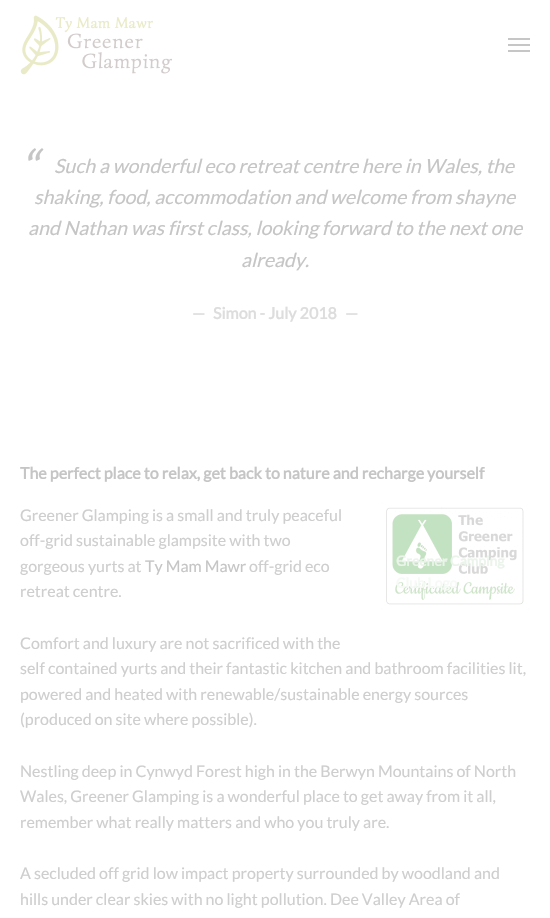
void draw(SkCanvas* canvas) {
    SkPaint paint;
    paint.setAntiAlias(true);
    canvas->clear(0xFFFFFFFF);
    canvas->drawImageRect(SkImages::DeferredFromEncodedData(SkData::MakeFromFileName("img1.png")), SkRect::MakeXYWH(20, 15, 153, 60), SkSamplingOptions());
    paint.setColor(0xFFC6C6C6);
    canvas->drawRect(SkRect::MakeXYWH(508, 44, 22, 2), paint);
    canvas->drawRect(SkRect::MakeXYWH(508, 38, 22, 2), paint);
    canvas->drawRect(SkRect::MakeXYWH(508, 50, 22, 2), paint);
    SkFont font1(fontMgr->matchFamilyStyle("Lato", SkFontStyle::Italic()), 48);
    font1.setSubpixel(true);
    paint.setColor(0xFFC6C5C5);
    canvas->drawString("“", 20, 185, font1, paint);
    SkFont font2(fontMgr->matchFamilyStyle("Lato", SkFontStyle::Italic()), 19.5f);
    font2.setSubpixel(true);
    canvas->drawString("Such a wonderful eco retreat centre here in Wales, the", 54, 173, font2, paint);
    canvas->drawString("shaking, food, accommodation and welcome from shayne", 34, 204, font2, paint);
    canvas->drawString("and Nathan was first class, looking forward to the next one", 28, 235, font2, paint);
    canvas->drawString("already.", 241, 267, font2, paint);
    SkFont font3(fontMgr->matchFamilyStyle("Lato", SkFontStyle::Bold()), 16);
    font3.setSubpixel(true);
    paint.setColor(0xFFDDDDDD);
    canvas->drawString("—", 192, 319, font3, paint);
    canvas->drawString("Simon - July 2018", 213, 319, font3, paint);
    canvas->drawString("—", 345, 319, font3, paint);
    paint.setColor(0xFFC6C5C5);
    canvas->drawString("The perfect place to relax, get back to nature and recharge yourself", 20, 479, font3, paint);
    SkFont font4(fontMgr->matchFamilyStyle("Lato", SkFontStyle::Normal()), 16);
    font4.setSubpixel(true);
    paint.setColor(0xFFCECECE);
    canvas->drawString("Greener Glamping is a small and truly peaceful", 20, 521, font4, paint);
    canvas->drawString("off-grid sustainable glampsite with two", 20, 546, font4, paint);
    canvas->drawString("gorgeous yurts at", 20, 572, font4, paint);
    paint.setColor(0xFFC6C5C5);
    canvas->drawString("Ty Mam Mawr", 145, 572, font4, paint);
    paint.setColor(0xFFCECECE);
    canvas->drawString("off-grid eco", 249, 572, font4, paint);
    canvas->drawString("retreat centre.", 20, 597, font4, paint);
    canvas->drawImageRect(SkImages::DeferredFromEncodedData(SkData::MakeFromFileName("img2.png")), SkRect::MakeXYWH(380, 502, 150, 109), SkSamplingOptions());
    SkFont font5(fontMgr->matchFamilyStyle("Lato", SkFontStyle::Bold()), 14);
    font5.setSubpixel(true);
    paint.setColor(0xFFEBF4EA);
    canvas->drawString("Greener Camping", 396, 566, font5, paint);
    paint.setColor(0xFFF6FAF6);
    canvas->drawString("Club Logo", 396, 588, font5, paint);
    paint.setColor(0xFFCECECE);
    canvas->drawString("Comfort and luxury are not sacrificed with the", 20, 649, font4, paint);
    canvas->drawString("self contained yurts and their fantastic kitchen and bathroom facilities lit,", 20, 674, font4, paint);
    canvas->drawString("powered and heated with renewable/sustainable energy sources", 20, 700, font4, paint);
    canvas->drawString("(produced on site where possible).", 20, 725, font4, paint);
    canvas->drawString("Nestling deep in Cynwyd Forest high in the Berwyn Mountains of North", 20, 777, font4, paint);
    canvas->drawString("Wales, Greener Glamping is a wonderful place to get away from it all,", 20, 802, font4, paint);
    canvas->drawString("remember what really matters and who you truly are.", 20, 828, font4, paint);
    canvas->drawString("A secluded off grid low impact property surrounded by woodland and", 20, 879, font4, paint);
    canvas->drawString("hills under clear skies with no light pollution. Dee Valley Area of", 20, 905, font4, paint);
}
